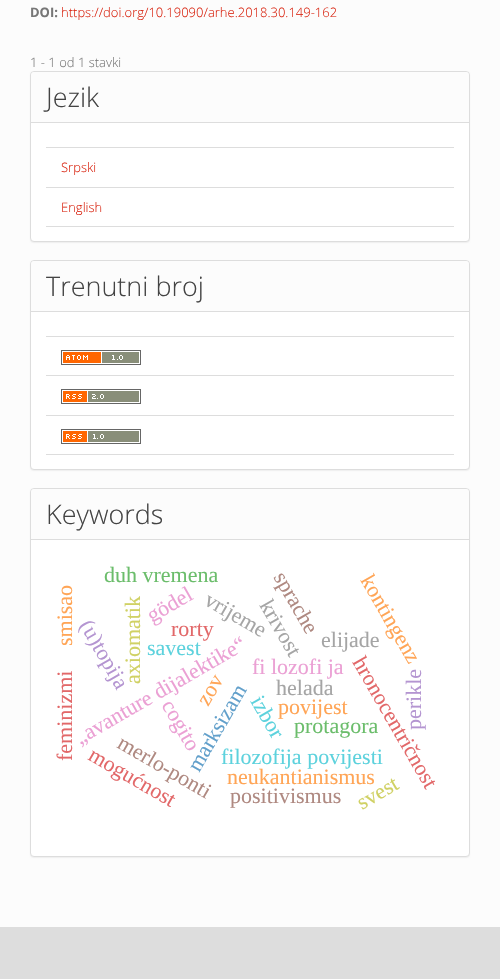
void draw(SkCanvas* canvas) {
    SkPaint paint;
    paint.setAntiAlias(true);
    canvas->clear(0xFFFCFCFC);
    SkFont font1(fontMgr->matchFamilyStyle("Open Sans", SkFontStyle::Bold()), 13);
    font1.setSubpixel(true);
    paint.setColor(0xFF777777);
    canvas->drawString("DOI:", 30, 17, font1, paint);
    SkFont font2(fontMgr->matchFamilyStyle("Open Sans", SkFontStyle(300, SkFontStyle::kNormal_Width, SkFontStyle::kUpright_Slant)), 13);
    font2.setSubpixel(true);
    paint.setColor(0xFFD9230F);
    canvas->drawString("https://doi.org/10.19090/arhe.2018.30.149-162", 61, 17, font2, paint);
    paint.setColor(0xFF777777);
    canvas->drawString("1 - 1 od 1 stavki", 30, 67, font2, paint);
    paint.setColor(0x0D000000);
    paint.setMaskFilter(SkMaskFilter::MakeBlur(kNormal_SkBlurStyle, 0.5f));
    canvas->drawRoundRect(SkRect::MakeXYWH(30, 72, 440, 171), 4, 4, paint);
    paint.setMaskFilter(nullptr);
    paint.setColor(0xFFFFFFFF);
    canvas->drawRoundRect(SkRect::MakeXYWH(30.5f, 71.5f, 439, 170), 3.5f, 3.5f, paint);
    paint.setStyle(SkPaint::kStroke_Style);
    paint.setStrokeWidth(1);
    paint.setColor(0xFFDDDDDD);
    canvas->drawRoundRect(SkRect::MakeXYWH(30.5f, 71.5f, 439, 170), 3.5f, 3.5f, paint);
    paint.setStyle(SkPaint::kFill_Style);
    paint.setColor(0xFFFCFCFC);
    canvas->drawPath(SkPathBuilder().moveTo(34, 72).lineTo(466, 72).cubicTo(467.5f, 72, 469, 73.5f, 469, 75).lineTo(469, 123).lineTo(31, 123).lineTo(31, 75).cubicTo(31, 73.5f, 32.5f, 72, 34, 72).close().detach(), paint);
    paint.setColor(0xFFDDDDDD);
    canvas->drawRect(SkRect::MakeXYWH(31, 122, 438, 1), paint);
    SkFont font3(fontMgr->matchFamilyStyle("Open Sans", SkFontStyle(300, SkFontStyle::kNormal_Width, SkFontStyle::kUpright_Slant)), 27);
    font3.setSubpixel(true);
    paint.setColor(0xFF444444);
    canvas->drawString("Jezik", 46, 107, font3, paint);
    paint.setColor(0xFFDDDDDD);
    canvas->drawRect(SkRect::MakeXYWH(46, 147, 408, 1), paint);
    canvas->drawRect(SkRect::MakeXYWH(46, 187, 408, 1), paint);
    paint.setColor(0xFFD9230F);
    canvas->drawString("Srpski", 61, 172, font2, paint);
    paint.setColor(0xFFDDDDDD);
    canvas->drawRect(SkRect::MakeXYWH(46, 226, 408, 1), paint);
    paint.setColor(0xFFD9230F);
    canvas->drawString("English", 61, 212, font2, paint);
    paint.setColor(0x0D000000);
    paint.setMaskFilter(SkMaskFilter::MakeBlur(kNormal_SkBlurStyle, 0.5f));
    canvas->drawRoundRect(SkRect::MakeXYWH(30, 261, 440, 210), 4, 4, paint);
    paint.setMaskFilter(nullptr);
    paint.setColor(0xFFFFFFFF);
    canvas->drawRoundRect(SkRect::MakeXYWH(30.5f, 260.5f, 439, 209), 3.5f, 3.5f, paint);
    paint.setStyle(SkPaint::kStroke_Style);
    paint.setColor(0xFFDDDDDD);
    canvas->drawRoundRect(SkRect::MakeXYWH(30.5f, 260.5f, 439, 209), 3.5f, 3.5f, paint);
    paint.setStyle(SkPaint::kFill_Style);
    paint.setColor(0xFFFCFCFC);
    canvas->drawPath(SkPathBuilder().moveTo(34, 261).lineTo(466, 261).cubicTo(467.5f, 261, 469, 262.5f, 469, 264).lineTo(469, 312).lineTo(31, 312).lineTo(31, 264).cubicTo(31, 262.5f, 32.5f, 261, 34, 261).close().detach(), paint);
    paint.setColor(0xFFDDDDDD);
    canvas->drawRect(SkRect::MakeXYWH(31, 311, 438, 1), paint);
    paint.setColor(0xFF444444);
    canvas->drawString("Trenutni broj", 46, 296, font3, paint);
    paint.setColor(0xFFDDDDDD);
    canvas->drawRect(SkRect::MakeXYWH(46, 336, 408, 1), paint);
    canvas->drawRect(SkRect::MakeXYWH(46, 375, 408, 1), paint);
    canvas->drawImageRect(SkImages::DeferredFromEncodedData(SkData::MakeFromFileName("img1.png")), SkRect::MakeXYWH(61, 350, 80, 15), SkSamplingOptions());
    canvas->drawRect(SkRect::MakeXYWH(46, 415, 408, 1), paint);
    canvas->drawImageRect(SkImages::DeferredFromEncodedData(SkData::MakeFromFileName("img2.png")), SkRect::MakeXYWH(61, 389, 80, 15), SkSamplingOptions());
    canvas->drawRect(SkRect::MakeXYWH(46, 454, 408, 1), paint);
    canvas->drawImageRect(SkImages::DeferredFromEncodedData(SkData::MakeFromFileName("img3.png")), SkRect::MakeXYWH(61, 429, 80, 15), SkSamplingOptions());
    paint.setColor(0x0D000000);
    paint.setMaskFilter(SkMaskFilter::MakeBlur(kNormal_SkBlurStyle, 0.5f));
    canvas->drawRoundRect(SkRect::MakeXYWH(30, 489, 440, 369), 4, 4, paint);
    paint.setMaskFilter(nullptr);
    paint.setColor(0xFFFFFFFF);
    canvas->drawRoundRect(SkRect::MakeXYWH(30.5f, 488.5f, 439, 368), 3.5f, 3.5f, paint);
    paint.setStyle(SkPaint::kStroke_Style);
    paint.setColor(0xFFDDDDDD);
    canvas->drawRoundRect(SkRect::MakeXYWH(30.5f, 488.5f, 439, 368), 3.5f, 3.5f, paint);
    paint.setStyle(SkPaint::kFill_Style);
    paint.setColor(0xFFFCFCFC);
    canvas->drawPath(SkPathBuilder().moveTo(34, 489).lineTo(466, 489).cubicTo(467.5f, 489, 469, 490.5f, 469, 492).lineTo(469, 540).lineTo(31, 540).lineTo(31, 492).cubicTo(31, 490.5f, 32.5f, 489, 34, 489).close().detach(), paint);
    paint.setColor(0xFFDDDDDD);
    canvas->drawRect(SkRect::MakeXYWH(31, 539, 438, 1), paint);
    paint.setColor(0xFF444444);
    canvas->drawString("Keywords", 46, 524, font3, paint);
    SkFont font4(fontMgr->matchFamilyStyle("Liberation Serif", SkFontStyle::Normal()), 22);
    font4.setSubpixel(true);
    paint.setColor(0xFFFFA556);
    canvas->save();
    canvas->rotate(-90, 72, 646);
    canvas->drawString("smisao", 72, 646, font4, paint);
    canvas->restore();
    paint.setColor(0xFF6BBD6B);
    canvas->drawString("duh vremena", 104, 582, font4, paint);
    paint.setColor(0xFFA5A5A5);
    canvas->save();
    canvas->rotate(60, 259, 605);
    canvas->drawString("krivost", 259, 605, font4, paint);
    canvas->restore();
    paint.setColor(0xFFAF8981);
    canvas->save();
    canvas->rotate(60, 273, 577);
    canvas->drawString("sprache", 273, 577, font4, paint);
    canvas->restore();
    paint.setColor(0xFFA5A5A5);
    canvas->drawString("elijade", 321, 647, font4, paint);
    paint.setColor(0xFFFFA556);
    canvas->save();
    canvas->rotate(60, 360, 580);
    canvas->drawString("kontingenz", 360, 580, font4, paint);
    canvas->restore();
    paint.setColor(0xFF5DD2DD);
    canvas->drawString("savest", 147, 655, font4, paint);
    paint.setColor(0xFFFFA556);
    canvas->save();
    canvas->rotate(-60, 208, 707);
    canvas->drawString("zov", 208, 707, font4, paint);
    canvas->restore();
    paint.setColor(0xFFEBA0D4);
    canvas->save();
    canvas->rotate(-30, 80, 745);
    canvas->drawString("„avanture dijalektike“", 80, 745, font4, paint);
    canvas->restore();
    paint.setColor(0xFFB495D1);
    canvas->save();
    canvas->rotate(60, 79, 625);
    canvas->drawString("(u)topija", 79, 625, font4, paint);
    canvas->restore();
    paint.setColor(0xFFD0D164);
    canvas->save();
    canvas->rotate(-90, 140, 684);
    canvas->drawString("axiomatik", 140, 684, font4, paint);
    canvas->restore();
    paint.setColor(0xFFEBA0D4);
    canvas->save();
    canvas->rotate(-30, 152, 623);
    canvas->drawString("gödel", 152, 623, font4, paint);
    canvas->restore();
    paint.setColor(0xFFA5A5A5);
    canvas->save();
    canvas->rotate(30, 203, 604);
    canvas->drawString("vrijeme", 203, 604, font4, paint);
    canvas->restore();
    paint.setColor(0xFFE26869);
    canvas->drawString("rorty", 171, 636, font4, paint);
    paint.setColor(0xFFEBA0D4);
    canvas->drawString("fi lozofi ja", 252, 674, font4, paint);
    paint.setColor(0xFF62A0CB);
    canvas->save();
    canvas->rotate(-60, 199, 773);
    canvas->drawString("marksizam", 199, 773, font4, paint);
    canvas->restore();
    paint.setColor(0xFF5DD2DD);
    canvas->drawString("filozofija povijesti", 221, 764, font4, paint);
    paint.setColor(0xFFE26869);
    canvas->save();
    canvas->rotate(60, 352, 662);
    canvas->drawString("hronocentričnost", 352, 662, font4, paint);
    canvas->restore();
    canvas->save();
    canvas->rotate(-90, 72, 761);
    canvas->drawString("feminizmi", 72, 761, font4, paint);
    canvas->restore();
    paint.setColor(0xFFA5A5A5);
    canvas->drawString("helada", 276, 695, font4, paint);
    paint.setColor(0xFFB495D1);
    canvas->save();
    canvas->rotate(-90, 421, 730);
    canvas->drawString("perikle", 421, 730, font4, paint);
    canvas->restore();
    paint.setColor(0xFFEBA0D4);
    canvas->save();
    canvas->rotate(60, 161, 705);
    canvas->drawString("cogito", 161, 705, font4, paint);
    canvas->restore();
    paint.setColor(0xFF5DD2DD);
    canvas->save();
    canvas->rotate(60, 250, 701);
    canvas->drawString("izbor", 250, 701, font4, paint);
    canvas->restore();
    paint.setColor(0xFFFFA556);
    canvas->drawString("povijest", 278, 714, font4, paint);
    paint.setColor(0xFF6BBD6B);
    canvas->drawString("protagora", 294, 733, font4, paint);
    paint.setColor(0xFFAF8981);
    canvas->save();
    canvas->rotate(30, 116, 747);
    canvas->drawString("merlo-ponti", 116, 747, font4, paint);
    canvas->restore();
    paint.setColor(0xFFE26869);
    canvas->save();
    canvas->rotate(30, 87, 759);
    canvas->drawString("mogućnost", 87, 759, font4, paint);
    canvas->restore();
    paint.setColor(0xFFFFA556);
    canvas->drawString("neukantianismus", 227, 784, font4, paint);
    paint.setColor(0xFFD0D164);
    canvas->save();
    canvas->rotate(-30, 362, 810);
    canvas->drawString("svest", 362, 810, font4, paint);
    canvas->restore();
    paint.setColor(0xFFAF8981);
    canvas->drawString("positivismus", 230, 803, font4, paint);
    paint.setColor(0xFFDDDDDD);
    canvas->drawRect(SkRect::MakeXYWH(0, 927, 500, 52), paint);
}
